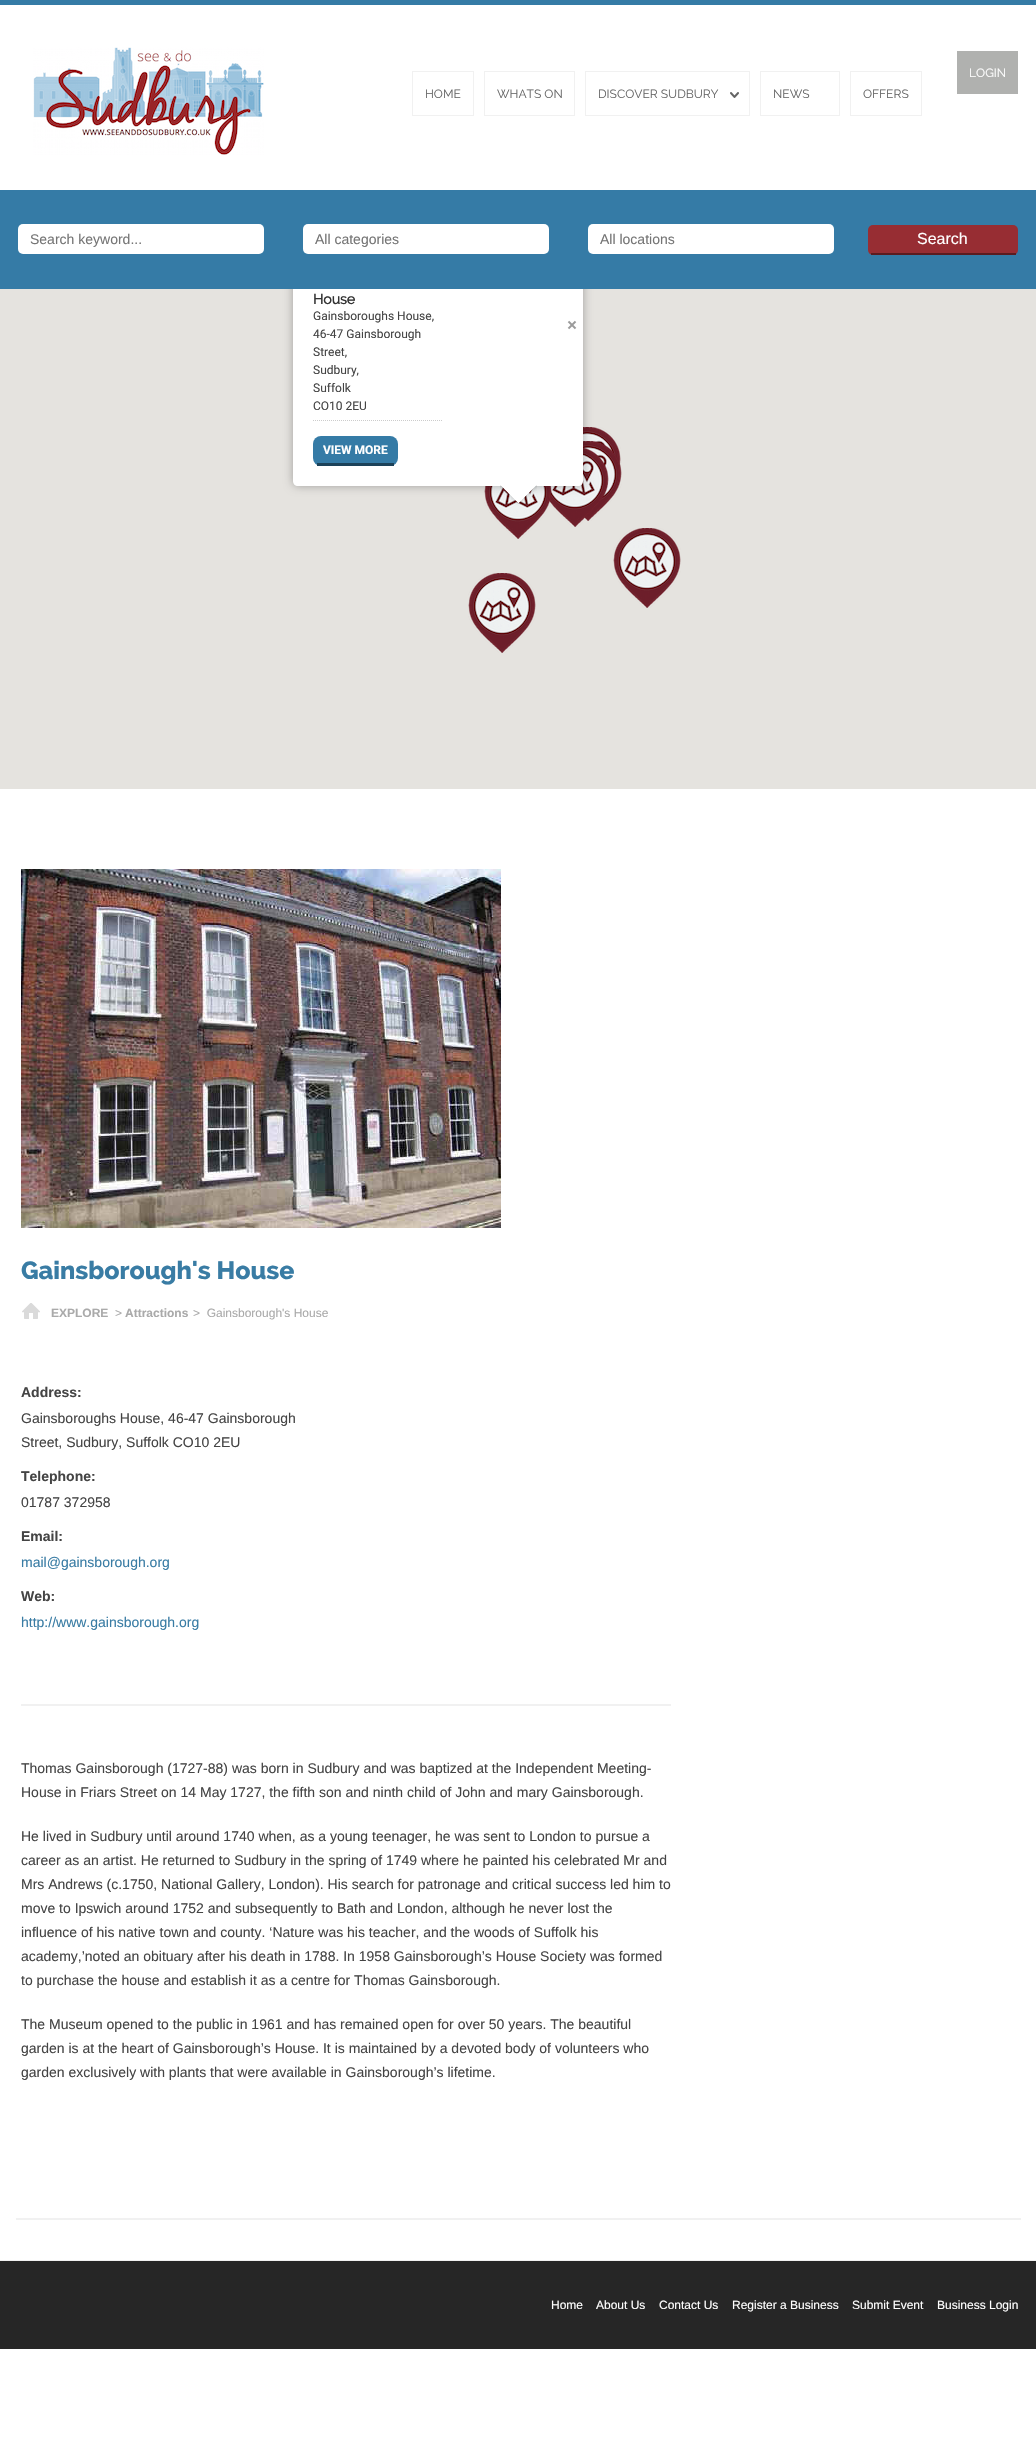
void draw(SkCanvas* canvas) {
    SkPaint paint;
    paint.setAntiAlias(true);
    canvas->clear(0xFFFFFFFF);
    paint.setColor(0xFF357BA6);
    canvas->drawRect(SkRect::MakeXYWH(0, 0, 1036, 5), paint);
    canvas->drawImageRect(SkImages::DeferredFromEncodedData(SkData::MakeFromFileName("img1.png")), SkRect::MakeXYWH(33, 47, 231, 108), SkSamplingOptions());
    paint.setColor(0xFFB0B1AF);
    canvas->drawRect(SkRect::MakeXYWH(957, 51, 61, 43), paint);
    SkFont font1(fontMgr->matchFamilyStyle("Raleway", SkFontStyle::Normal()), 12);
    font1.setSubpixel(true);
    paint.setColor(0xFFFFFFFF);
    canvas->drawString("LOGIN", 969, 77, font1, paint);
    paint.setColor(0xFF357BA6);
    canvas->drawRect(SkRect::MakeXYWH(0, 190, 1036, 99), paint);
    paint.setColor(0xFFFFFFFF);
    canvas->drawRoundRect(SkRect::MakeXYWH(303, 224, 246, 30), 5, 5, paint);
    canvas->drawRoundRect(SkRect::MakeXYWH(588, 224, 246, 30), 5, 5, paint);
    paint.setColor(0xFFE5E3DF);
    canvas->drawRect(SkRect::MakeXYWH(0, 289, 1036, 500), paint);
    canvas->drawImageRect(SkImages::DeferredFromEncodedData(SkData::MakeFromFileName("img5.png")), SkRect::MakeXYWH(583, 427, 38, 45), SkSamplingOptions());
    canvas->drawImageRect(SkImages::DeferredFromEncodedData(SkData::MakeFromFileName("img6.png")), SkRect::MakeXYWH(564, 441, 58, 80), SkSamplingOptions());
    canvas->drawImageRect(SkImages::DeferredFromEncodedData(SkData::MakeFromFileName("img8.png")), SkRect::MakeXYWH(543, 447, 66, 80), SkSamplingOptions());
    canvas->drawImageRect(SkImages::DeferredFromEncodedData(SkData::MakeFromFileName("img7.png")), SkRect::MakeXYWH(484, 486, 68, 53), SkSamplingOptions());
    canvas->save();
    canvas->clipRect(SkRect::MakeXYWH(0, 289, 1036, 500));
    paint.setColor(0x4D000000);
    paint.setMaskFilter(SkMaskFilter::MakeBlur(kNormal_SkBlurStyle, 5));
    canvas->drawRoundRect(SkRect::MakeXYWH(293, -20, 290, 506), 5, 5, paint);
    paint.setMaskFilter(nullptr);
    canvas->restore();
    paint.setStyle(SkPaint::kStroke_Style);
    paint.setStrokeWidth(1);
    paint.setColor(0xFFF1F1F1);
    canvas->drawRect(SkRect::MakeXYWH(412.5f, 71.5f, 61, 44), paint);
    paint.setStyle(SkPaint::kFill_Style);
    paint.setColor(0xFF666666);
    canvas->drawString("HOME", 425, 98, font1, paint);
    paint.setStyle(SkPaint::kStroke_Style);
    paint.setColor(0xFFF1F1F1);
    canvas->drawRect(SkRect::MakeXYWH(484.5f, 71.5f, 90, 44), paint);
    paint.setStyle(SkPaint::kFill_Style);
    paint.setColor(0xFF666666);
    canvas->drawString("WHATS ON", 497, 98, font1, paint);
    paint.setStyle(SkPaint::kStroke_Style);
    paint.setColor(0xFFF1F1F1);
    canvas->drawRect(SkRect::MakeXYWH(585.5f, 71.5f, 164, 44), paint);
    paint.setStyle(SkPaint::kFill_Style);
    paint.setColor(0xFF666666);
    canvas->drawString("DISCOVER SUDBURY", 598, 98, font1, paint);
    canvas->drawImageRect(SkImages::DeferredFromEncodedData(SkData::MakeFromFileName("img2.png")), SkRect::MakeXYWH(730, 92, 9, 6), SkSamplingOptions());
    paint.setStyle(SkPaint::kStroke_Style);
    paint.setColor(0xFFF1F1F1);
    canvas->drawRect(SkRect::MakeXYWH(760.5f, 71.5f, 79, 44), paint);
    paint.setStyle(SkPaint::kFill_Style);
    paint.setColor(0xFF666666);
    canvas->drawString("NEWS", 773, 98, font1, paint);
    paint.setStyle(SkPaint::kStroke_Style);
    paint.setColor(0xFFF1F1F1);
    canvas->drawRect(SkRect::MakeXYWH(850.5f, 71.5f, 71, 44), paint);
    paint.setStyle(SkPaint::kFill_Style);
    paint.setColor(0xFF666666);
    canvas->drawString("OFFERS", 863, 98, font1, paint);
    paint.setColor(0xFFFFFFFF);
    canvas->drawRoundRect(SkRect::MakeXYWH(18, 224, 246, 30), 5, 5, paint);
    SkFont font2(fontMgr->matchFamilyStyle("Liberation Sans", SkFontStyle::Normal()), 14);
    font2.setSubpixel(true);
    paint.setColor(0xFF757575);
    canvas->drawString("Search keyword...", 30, 244, font2, paint);
    canvas->drawString("All categories", 315, 244, font2, paint);
    canvas->drawString("All locations", 600, 244, font2, paint);
    paint.setColor(0xFF972D33);
    canvas->drawRoundRect(SkRect::MakeXYWH(868, 225, 150, 30), 5, 5, paint);
    paint.setColor(0xFF5C1B1F);
    canvas->drawRect(SkRect::MakeXYWH(871, 253, 145, 2), paint);
    SkFont font3(fontMgr->matchFamilyStyle("Liberation Sans", SkFontStyle::Normal()), 16);
    font3.setSubpixel(true);
    paint.setColor(0xFFFFFFFF);
    canvas->drawString("Search", 917, 244, font3, paint);
    canvas->drawPath(SkPathBuilder().moveTo(293, 289).lineTo(583, 289).lineTo(583, 481).cubicTo(583, 484, 581, 486, 578, 486).lineTo(298, 486).cubicTo(295, 486, 293, 484, 293, 481).close().detach(), paint);
    SkFont font4(fontMgr->matchFamilyStyle("Raleway", SkFontStyle::Bold()), 14);
    font4.setSubpixel(true);
    paint.setColor(0xFF333333);
    canvas->drawString("House", 313, 304, font4, paint);
    paint.setStyle(SkPaint::kStroke_Style);
    paint.setColor(0xFFCCCCCC);
    paint.setPathEffect(SkDashPathEffect::Make({{1, 1}}, 0));
    canvas->drawPath(SkPathBuilder().moveTo(313, 420.5f).lineTo(443, 420.5f).detach(), paint);
    paint.setPathEffect(nullptr);
    SkFont font5(fontMgr->matchFamilyStyle("Roboto", SkFontStyle::Normal()), 12);
    font5.setSubpixel(true);
    paint.setStyle(SkPaint::kFill_Style);
    paint.setColor(0xFF444444);
    canvas->drawString("Gainsboroughs House,", 313, 320, font5, paint);
    canvas->drawString("46-47 Gainsborough", 313, 338, font5, paint);
    canvas->drawString("Street,", 313, 356, font5, paint);
    canvas->drawString("Sudbury,", 313, 374, font5, paint);
    canvas->drawString("Suffolk", 313, 392, font5, paint);
    canvas->drawString("CO10 2EU", 313, 410, font5, paint);
    paint.setColor(0xFF357BA6);
    canvas->drawRoundRect(SkRect::MakeXYWH(313, 436, 85, 30), 8, 8, paint);
    paint.setColor(0xFF1C4259);
    canvas->drawRect(SkRect::MakeXYWH(317, 463, 77, 3), paint);
    SkFont font6(fontMgr->matchFamilyStyle("Roboto", SkFontStyle::Bold()), 12);
    font6.setSubpixel(true);
    paint.setColor(0xFFFFFFFF);
    canvas->drawString("VIEW MORE", 323, 454, font6, paint);
    canvas->drawImageRect(SkImages::DeferredFromEncodedData(SkData::MakeFromFileName("img3.png")), SkRect::MakeXYWH(500, 485, 37, 20), SkSamplingOptions());
    canvas->drawImageRect(SkImages::DeferredFromEncodedData(SkData::MakeFromFileName("img4.png")), SkRect::MakeXYWH(567, 320, 10, 10), SkSamplingOptions());
    canvas->drawImageRect(SkImages::DeferredFromEncodedData(SkData::MakeFromFileName("img9.png")), SkRect::MakeXYWH(468, 573, 68, 80), SkSamplingOptions());
    canvas->drawImageRect(SkImages::DeferredFromEncodedData(SkData::MakeFromFileName("img9.png")), SkRect::MakeXYWH(613, 528, 68, 80), SkSamplingOptions());
    paint.setColor(0xFFF1F1F1);
    canvas->drawRect(SkRect::MakeXYWH(16, 2218, 1005, 2), paint);
    canvas->drawImageRect(SkImages::DeferredFromEncodedData(SkData::MakeFromFileName("img10.png")), SkRect::MakeXYWH(21, 869, 480, 359), SkSamplingOptions());
    SkFont font7(fontMgr->matchFamilyStyle("Raleway", SkFontStyle(800, SkFontStyle::kNormal_Width, SkFontStyle::kUpright_Slant)), 25);
    font7.setSubpixel(true);
    paint.setColor(0xFF397CA4);
    canvas->drawString("Gainsborough's House", 21, 1279, font7, paint);
    canvas->drawImageRect(SkImages::DeferredFromEncodedData(SkData::MakeFromFileName("img11.png")), SkRect::MakeXYWH(22, 1303, 18, 16), SkSamplingOptions());
    SkFont font8(fontMgr->matchFamilyStyle("Liberation Sans", SkFontStyle::Bold()), 12);
    font8.setSubpixel(true);
    paint.setColor(0xFFAAAAAA);
    canvas->drawString("EXPLORE", 51, 1317, font8, paint);
    SkFont font9(fontMgr->matchFamilyStyle("Liberation Sans", SkFontStyle::Normal()), 12);
    font9.setSubpixel(true);
    canvas->drawString(">", 115, 1317, font9, paint);
    canvas->drawString("Attractions", 125, 1317, font8, paint);
    canvas->drawString(">  Gainsborough's House", 193, 1317, font9, paint);
    paint.setColor(0xFFF1F1F1);
    canvas->drawRect(SkRect::MakeXYWH(21, 1704, 650, 2), paint);
    SkFont font10(fontMgr->matchFamilyStyle("Liberation Sans", SkFontStyle::Bold()), 14);
    font10.setSubpixel(true);
    paint.setColor(0xFF444444);
    canvas->drawString("Address:", 21, 1397, font10, paint);
    canvas->drawString("Gainsboroughs House, 46-47 Gainsborough", 21, 1423, font2, paint);
    canvas->drawString("Street, Sudbury, Suffolk CO10 2EU", 21, 1447, font2, paint);
    canvas->drawString("Telephone:", 21, 1481, font10, paint);
    canvas->drawString("01787 372958", 21, 1507, font2, paint);
    canvas->drawString("Email:", 21, 1541, font10, paint);
    paint.setColor(0xFF397CA4);
    canvas->drawString("mail@gainsborough.org", 21, 1567, font2, paint);
    paint.setColor(0xFF444444);
    canvas->drawString("Web:", 21, 1601, font10, paint);
    paint.setColor(0xFF397CA4);
    canvas->drawString("http://www.gainsborough.org", 21, 1627, font2, paint);
    paint.setColor(0xFF444444);
    canvas->drawString("Thomas Gainsborough (1727-88) was born in Sudbury and was baptized at the Independent Meeting-", 21, 1773, font2, paint);
    canvas->drawString("House in Friars Street on 14 May 1727, the fifth son and ninth child of John and mary Gainsborough.", 21, 1797, font2, paint);
    canvas->drawString("He lived in Sudbury until around 1740 when, as a young teenager, he was sent to London to pursue a", 21, 1841, font2, paint);
    canvas->drawString("career as an artist. He returned to Sudbury in the spring of 1749 where he painted his celebrated Mr and", 21, 1865, font2, paint);
    canvas->drawString("Mrs Andrews (c.1750, National Gallery, London). His search for patronage and critical success led him to", 21, 1889, font2, paint);
    canvas->drawString("move to Ipswich around 1752 and subsequently to Bath and London, although he never lost the", 21, 1913, font2, paint);
    canvas->drawString("influence of his native town and county. ‘Nature was his teacher, and the woods of Suffolk his", 21, 1937, font2, paint);
    canvas->drawString("academy,’noted an obituary after his death in 1788. In 1958 Gainsborough’s House Society was formed", 21, 1961, font2, paint);
    canvas->drawString("to purchase the house and establish it as a centre for Thomas Gainsborough.", 21, 1985, font2, paint);
    canvas->drawString("The Museum opened to the public in 1961 and has remained open for over 50 years. The beautiful", 21, 2029, font2, paint);
    canvas->drawString("garden is at the heart of Gainsborough’s House. It is maintained by a devoted body of volunteers who", 21, 2053, font2, paint);
    canvas->drawString("garden exclusively with plants that were available in Gainsborough’s lifetime.", 21, 2077, font2, paint);
    paint.setColor(0xFF262626);
    canvas->drawRect(SkRect::MakeXYWH(0, 2261, 1036, 88), paint);
    paint.setColor(0xFFF1F1F1);
    canvas->drawRect(SkRect::MakeXYWH(0, 2260, 1036, 1), paint);
    paint.setColor(0xFFFFFFFF);
    canvas->drawString("Home", 551, 2309, font9, paint);
    canvas->drawString("About Us", 596, 2309, font9, paint);
    canvas->drawString("Contact Us", 659, 2309, font9, paint);
    canvas->drawString("Register a Business", 732, 2309, font9, paint);
    canvas->drawString("Submit Event", 852, 2309, font9, paint);
    canvas->drawString("Business Login", 937, 2309, font9, paint);
}
